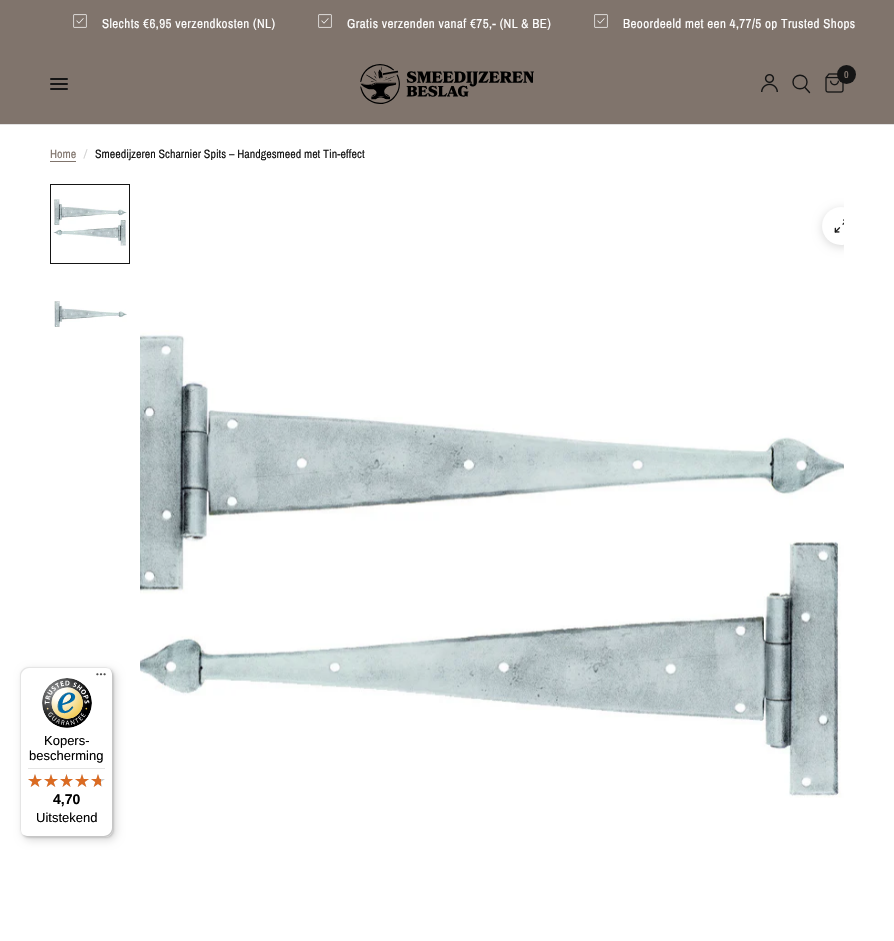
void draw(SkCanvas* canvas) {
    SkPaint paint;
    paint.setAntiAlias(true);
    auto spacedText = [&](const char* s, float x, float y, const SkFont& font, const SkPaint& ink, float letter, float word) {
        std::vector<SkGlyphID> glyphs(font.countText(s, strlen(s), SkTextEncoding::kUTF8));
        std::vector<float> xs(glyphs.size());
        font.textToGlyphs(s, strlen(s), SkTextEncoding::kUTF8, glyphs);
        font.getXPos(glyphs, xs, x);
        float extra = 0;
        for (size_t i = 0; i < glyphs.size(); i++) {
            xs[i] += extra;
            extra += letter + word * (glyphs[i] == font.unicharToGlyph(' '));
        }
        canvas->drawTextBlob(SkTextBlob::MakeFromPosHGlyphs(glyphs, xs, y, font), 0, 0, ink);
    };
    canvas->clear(0xFFFFFFFF);
    paint.setColor(0xFF80746C);
    canvas->drawRect(SkRect::MakeXYWH(0, 0, 894, 124), paint);
    canvas->drawImageRect(SkImages::DeferredFromEncodedData(SkData::MakeFromFileName("img1.png")), SkRect::MakeXYWH(73, 14, 14, 14), SkSamplingOptions());
    SkFont font1(fontMgr->matchFamilyStyle("Archivo Narrow", SkFontStyle::Normal()), 13);
    font1.setSubpixel(true);
    paint.setColor(0xFFFFFFFF);
    spacedText("Slechts €6,95 verzendkosten (NL)", 102, 28, font1, paint, 0.4f, 0);
    canvas->drawImageRect(SkImages::DeferredFromEncodedData(SkData::MakeFromFileName("img1.png")), SkRect::MakeXYWH(318, 14, 14, 14), SkSamplingOptions());
    spacedText("Gratis verzenden vanaf €75,- (NL & BE)", 347, 28, font1, paint, 0.4f, 0);
    canvas->drawImageRect(SkImages::DeferredFromEncodedData(SkData::MakeFromFileName("img1.png")), SkRect::MakeXYWH(594, 14, 14, 14), SkSamplingOptions());
    canvas->save();
    canvas->clipRect(SkRect::MakeXYWH(0, 14, 894, 16));
    spacedText("Beoordeeld met een 4,77/5 op Trusted Shops", 623, 28, font1, paint, 0.4f, 0);
    canvas->restore();
    paint.setColor(0xFFE2E2E2);
    canvas->drawRect(SkRect::MakeXYWH(0, 124, 894, 1), paint);
    canvas->drawImageRect(SkImages::DeferredFromEncodedData(SkData::MakeFromFileName("img2.png")), SkRect::MakeXYWH(360, 64, 174, 40), SkSamplingOptions());
    canvas->drawImageRect(SkImages::DeferredFromEncodedData(SkData::MakeFromFileName("img3.png")), SkRect::MakeXYWH(761, 74, 17, 18), SkSamplingOptions());
    paint.setStyle(SkPaint::kStroke_Style);
    paint.setStrokeWidth(1.4f);
    paint.setStrokeCap(SkPaint::kRound_Cap);
    paint.setStrokeJoin(SkPaint::kRound_Join);
    paint.setColor(0xFF151515);
    canvas->drawPath(SkPathBuilder().moveTo(805, 87.5f).lineTo(809.5f, 92.5f).moveTo(807, 82).cubicTo(807, 91, 793, 91, 793, 82).cubicTo(793, 73, 807, 73, 807, 82).close().detach(), paint);
    canvas->drawImageRect(SkImages::DeferredFromEncodedData(SkData::MakeFromFileName("img4.png")), SkRect::MakeXYWH(825, 73, 19, 20), SkSamplingOptions());
    paint.setStyle(SkPaint::kFill_Style);
    canvas->drawCircle(846.5f, 74.5f, 9.5f, paint);
    SkFont font2(fontMgr->matchFamilyStyle("Archivo Narrow", SkFontStyle(600, SkFontStyle::kNormal_Width, SkFontStyle::kUpright_Slant)), 10);
    font2.setSubpixel(true);
    paint.setColor(0xFF80746C);
    canvas->drawString("0", 844, 78, font2, paint);
    paint.setColor(0xFF151515);
    canvas->drawRoundRect(SkRect::MakeXYWH(50, 78, 18, 2), 1, 1, paint);
    canvas->drawRoundRect(SkRect::MakeXYWH(50, 83, 18, 2), 1, 1, paint);
    canvas->drawRoundRect(SkRect::MakeXYWH(50, 88, 18, 2), 1, 1, paint);
    SkFont font3(fontMgr->matchFamilyStyle("Archivo Narrow", SkFontStyle::Normal()), 12);
    font3.setSubpixel(true);
    paint.setColor(0xFF80746C);
    canvas->drawString("Home", 50, 158, font3, paint);
    canvas->drawRect(SkRect::MakeXYWH(50, 161, 26, 1), paint);
    SkFont font4(fontMgr->matchFamilyStyle("Archivo Narrow", SkFontStyle::Italic()), 12);
    font4.setSubpixel(true);
    paint.setColor(0xFFD0D0D0);
    canvas->drawString("/", 84, 158, font4, paint);
    paint.setColor(0xFF151515);
    canvas->drawString("Smeedijzeren Scharnier Spits – Handgesmeed met Tin-effect", 95, 158, font3, paint);
    canvas->drawImageRect(SkImages::DeferredFromEncodedData(SkData::MakeFromFileName("img5.png")), SkRect::MakeXYWH(53, 199, 74, 47), SkSamplingOptions());
    paint.setStyle(SkPaint::kStroke_Style);
    paint.setStrokeWidth(1);
    paint.setStrokeCap(SkPaint::kButt_Cap);
    paint.setStrokeJoin(SkPaint::kMiter_Join);
    canvas->drawRect(SkRect::MakeXYWH(50.5f, 184.5f, 79, 79), paint);
    canvas->drawImageRect(SkImages::DeferredFromEncodedData(SkData::MakeFromFileName("img6.png")), SkRect::MakeXYWH(54, 301, 73, 26), SkSamplingOptions());
    canvas->save();
    canvas->clipRect(SkRect::MakeXYWH(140, 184, 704, 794));
    paint.setStyle(SkPaint::kFill_Style);
    paint.setColor(0x26000000);
    paint.setMaskFilter(SkMaskFilter::MakeBlur(kNormal_SkBlurStyle, 5));
    canvas->drawRoundRect(SkRect::MakeXYWH(822, 209, 38, 38), 19, 19, paint);
    paint.setMaskFilter(nullptr);
    canvas->restore();
    canvas->save();
    canvas->clipRect(SkRect::MakeXYWH(140, 184, 704, 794));
    paint.setColor(0xFFFFFFFF);
    canvas->drawCircle(841, 226, 19, paint);
    canvas->restore();
    canvas->drawImageRect(SkImages::DeferredFromEncodedData(SkData::MakeFromFileName("img7.png")), SkRect::MakeXYWH(834, 219, 10, 14), SkSamplingOptions());
    canvas->drawImageRect(SkImages::DeferredFromEncodedData(SkData::MakeFromFileName("img8.png")), SkRect::MakeXYWH(140, 330, 704, 468), SkSamplingOptions());
    paint.setColor(0x26000000);
    paint.setMaskFilter(SkMaskFilter::MakeBlur(kNormal_SkBlurStyle, 4));
    canvas->drawRoundRect(SkRect::MakeXYWH(23, 670, 93, 170), 8, 8, paint);
    paint.setMaskFilter(nullptr);
    paint.setMaskFilter(SkMaskFilter::MakeBlur(kNormal_SkBlurStyle, 1));
    canvas->drawRoundRect(SkRect::MakeXYWH(21, 668, 93, 170), 8, 8, paint);
    paint.setMaskFilter(nullptr);
    paint.setColor(0xFFFFFFFF);
    canvas->drawRoundRect(SkRect::MakeXYWH(20, 667, 93, 170), 8, 8, paint);
    paint.setColor(0xFFE5E5E5);
    canvas->drawPath(SkPathBuilder().moveTo(29, 668).lineTo(106, 668).cubicTo(108, 668, 110, 669, 112, 671).cubicTo(110, 669, 108, 667, 105, 667).lineTo(28, 667).cubicTo(24, 667, 20, 671, 20, 675).lineTo(20, 829).cubicTo(20, 832, 22, 834, 24, 836).cubicTo(22, 834, 21, 832, 21, 830).lineTo(21, 676).cubicTo(21, 672, 25, 668, 29, 668).close().detach(), paint);
    paint.setColor(0xFFCCCCCC);
    canvas->drawPath(SkPathBuilder().moveTo(21, 833).cubicTo(23, 835, 25, 837, 28, 837).lineTo(105, 837).cubicTo(109, 837, 113, 833, 113, 829).lineTo(113, 675).cubicTo(113, 672, 111, 670, 109, 668).cubicTo(111, 670, 112, 672, 112, 674).lineTo(112, 828).cubicTo(112, 832, 108, 836, 104, 836).lineTo(27, 836).cubicTo(25, 836, 23, 835, 21, 833).close().detach(), paint);
    paint.setColor(0x33323232);
    canvas->drawPath(SkPathBuilder().moveTo(22, 834).cubicTo(23, 836, 26, 837, 28, 837).lineTo(105, 837).cubicTo(109, 837, 113, 833, 113, 829).lineTo(113, 675).cubicTo(113, 673, 112, 670, 110, 669).cubicTo(111, 670, 112, 672, 112, 674).lineTo(112, 828).cubicTo(112, 833, 109, 836, 104, 836).lineTo(27, 836).cubicTo(25, 836, 23, 835, 22, 834).close().detach(), paint);
    paint.setColor(0x4DFFFFFF);
    canvas->drawPath(SkPathBuilder().moveTo(20, 828).lineTo(20, 829).cubicTo(20, 833, 24, 837, 28, 837).lineTo(105, 837).cubicTo(109, 837, 113, 833, 113, 829).lineTo(113, 675).cubicTo(113, 673, 112, 670, 110, 669).cubicTo(111, 670, 112, 672, 112, 674).lineTo(112, 828).cubicTo(112, 833, 109, 836, 104, 836).lineTo(28, 836).cubicTo(23, 836, 20, 833, 20, 828).close().detach(), paint);
    canvas->drawImageRect(SkImages::DeferredFromEncodedData(SkData::MakeFromFileName("img9.png")), SkRect::MakeXYWH(96, 673, 10, 3), SkSamplingOptions());
    canvas->drawImageRect(SkImages::DeferredFromEncodedData(SkData::MakeFromFileName("img10.png")), SkRect::MakeXYWH(42, 678, 50, 50), SkSamplingOptions());
    SkFont font5(fontMgr->matchFamilyStyle("Liberation Sans", SkFontStyle::Normal()), 13);
    font5.setSubpixel(true);
    paint.setColor(0xFF000000);
    canvas->drawString("Kopers-", 44, 745, font5, paint);
    canvas->drawString("bescherming", 29, 760, font5, paint);
    paint.setColor(0xFFE5E5E5);
    canvas->drawRect(SkRect::MakeXYWH(28, 768, 77, 1), paint);
    canvas->drawImageRect(SkImages::DeferredFromEncodedData(SkData::MakeFromFileName("img11.png")), SkRect::MakeXYWH(28, 774, 14, 13), SkSamplingOptions());
    canvas->drawImageRect(SkImages::DeferredFromEncodedData(SkData::MakeFromFileName("img11.png")), SkRect::MakeXYWH(44, 774, 14, 13), SkSamplingOptions());
    canvas->drawImageRect(SkImages::DeferredFromEncodedData(SkData::MakeFromFileName("img12.png")), SkRect::MakeXYWH(60, 774, 13, 13), SkSamplingOptions());
    canvas->drawImageRect(SkImages::DeferredFromEncodedData(SkData::MakeFromFileName("img11.png")), SkRect::MakeXYWH(75, 774, 14, 13), SkSamplingOptions());
    canvas->drawImageRect(SkImages::DeferredFromEncodedData(SkData::MakeFromFileName("img11.png")), SkRect::MakeXYWH(91, 774, 14, 13), SkSamplingOptions());
    canvas->drawImageRect(SkImages::DeferredFromEncodedData(SkData::MakeFromFileName("img13.png")), SkRect::MakeXYWH(28, 774, 14, 13), SkSamplingOptions());
    canvas->drawImageRect(SkImages::DeferredFromEncodedData(SkData::MakeFromFileName("img13.png")), SkRect::MakeXYWH(44, 774, 14, 13), SkSamplingOptions());
    canvas->drawImageRect(SkImages::DeferredFromEncodedData(SkData::MakeFromFileName("img14.png")), SkRect::MakeXYWH(60, 774, 13, 13), SkSamplingOptions());
    canvas->drawImageRect(SkImages::DeferredFromEncodedData(SkData::MakeFromFileName("img13.png")), SkRect::MakeXYWH(75, 774, 14, 13), SkSamplingOptions());
    canvas->drawImageRect(SkImages::DeferredFromEncodedData(SkData::MakeFromFileName("img15.png")), SkRect::MakeXYWH(91, 774, 10, 13), SkSamplingOptions());
    SkFont font6(fontMgr->matchFamilyStyle("Liberation Sans", SkFontStyle::Bold()), 14);
    font6.setSubpixel(true);
    paint.setColor(0xFF000000);
    canvas->drawString("4,70", 53, 804, font6, paint);
    canvas->drawString("Uitstekend", 36, 822, font5, paint);
}
